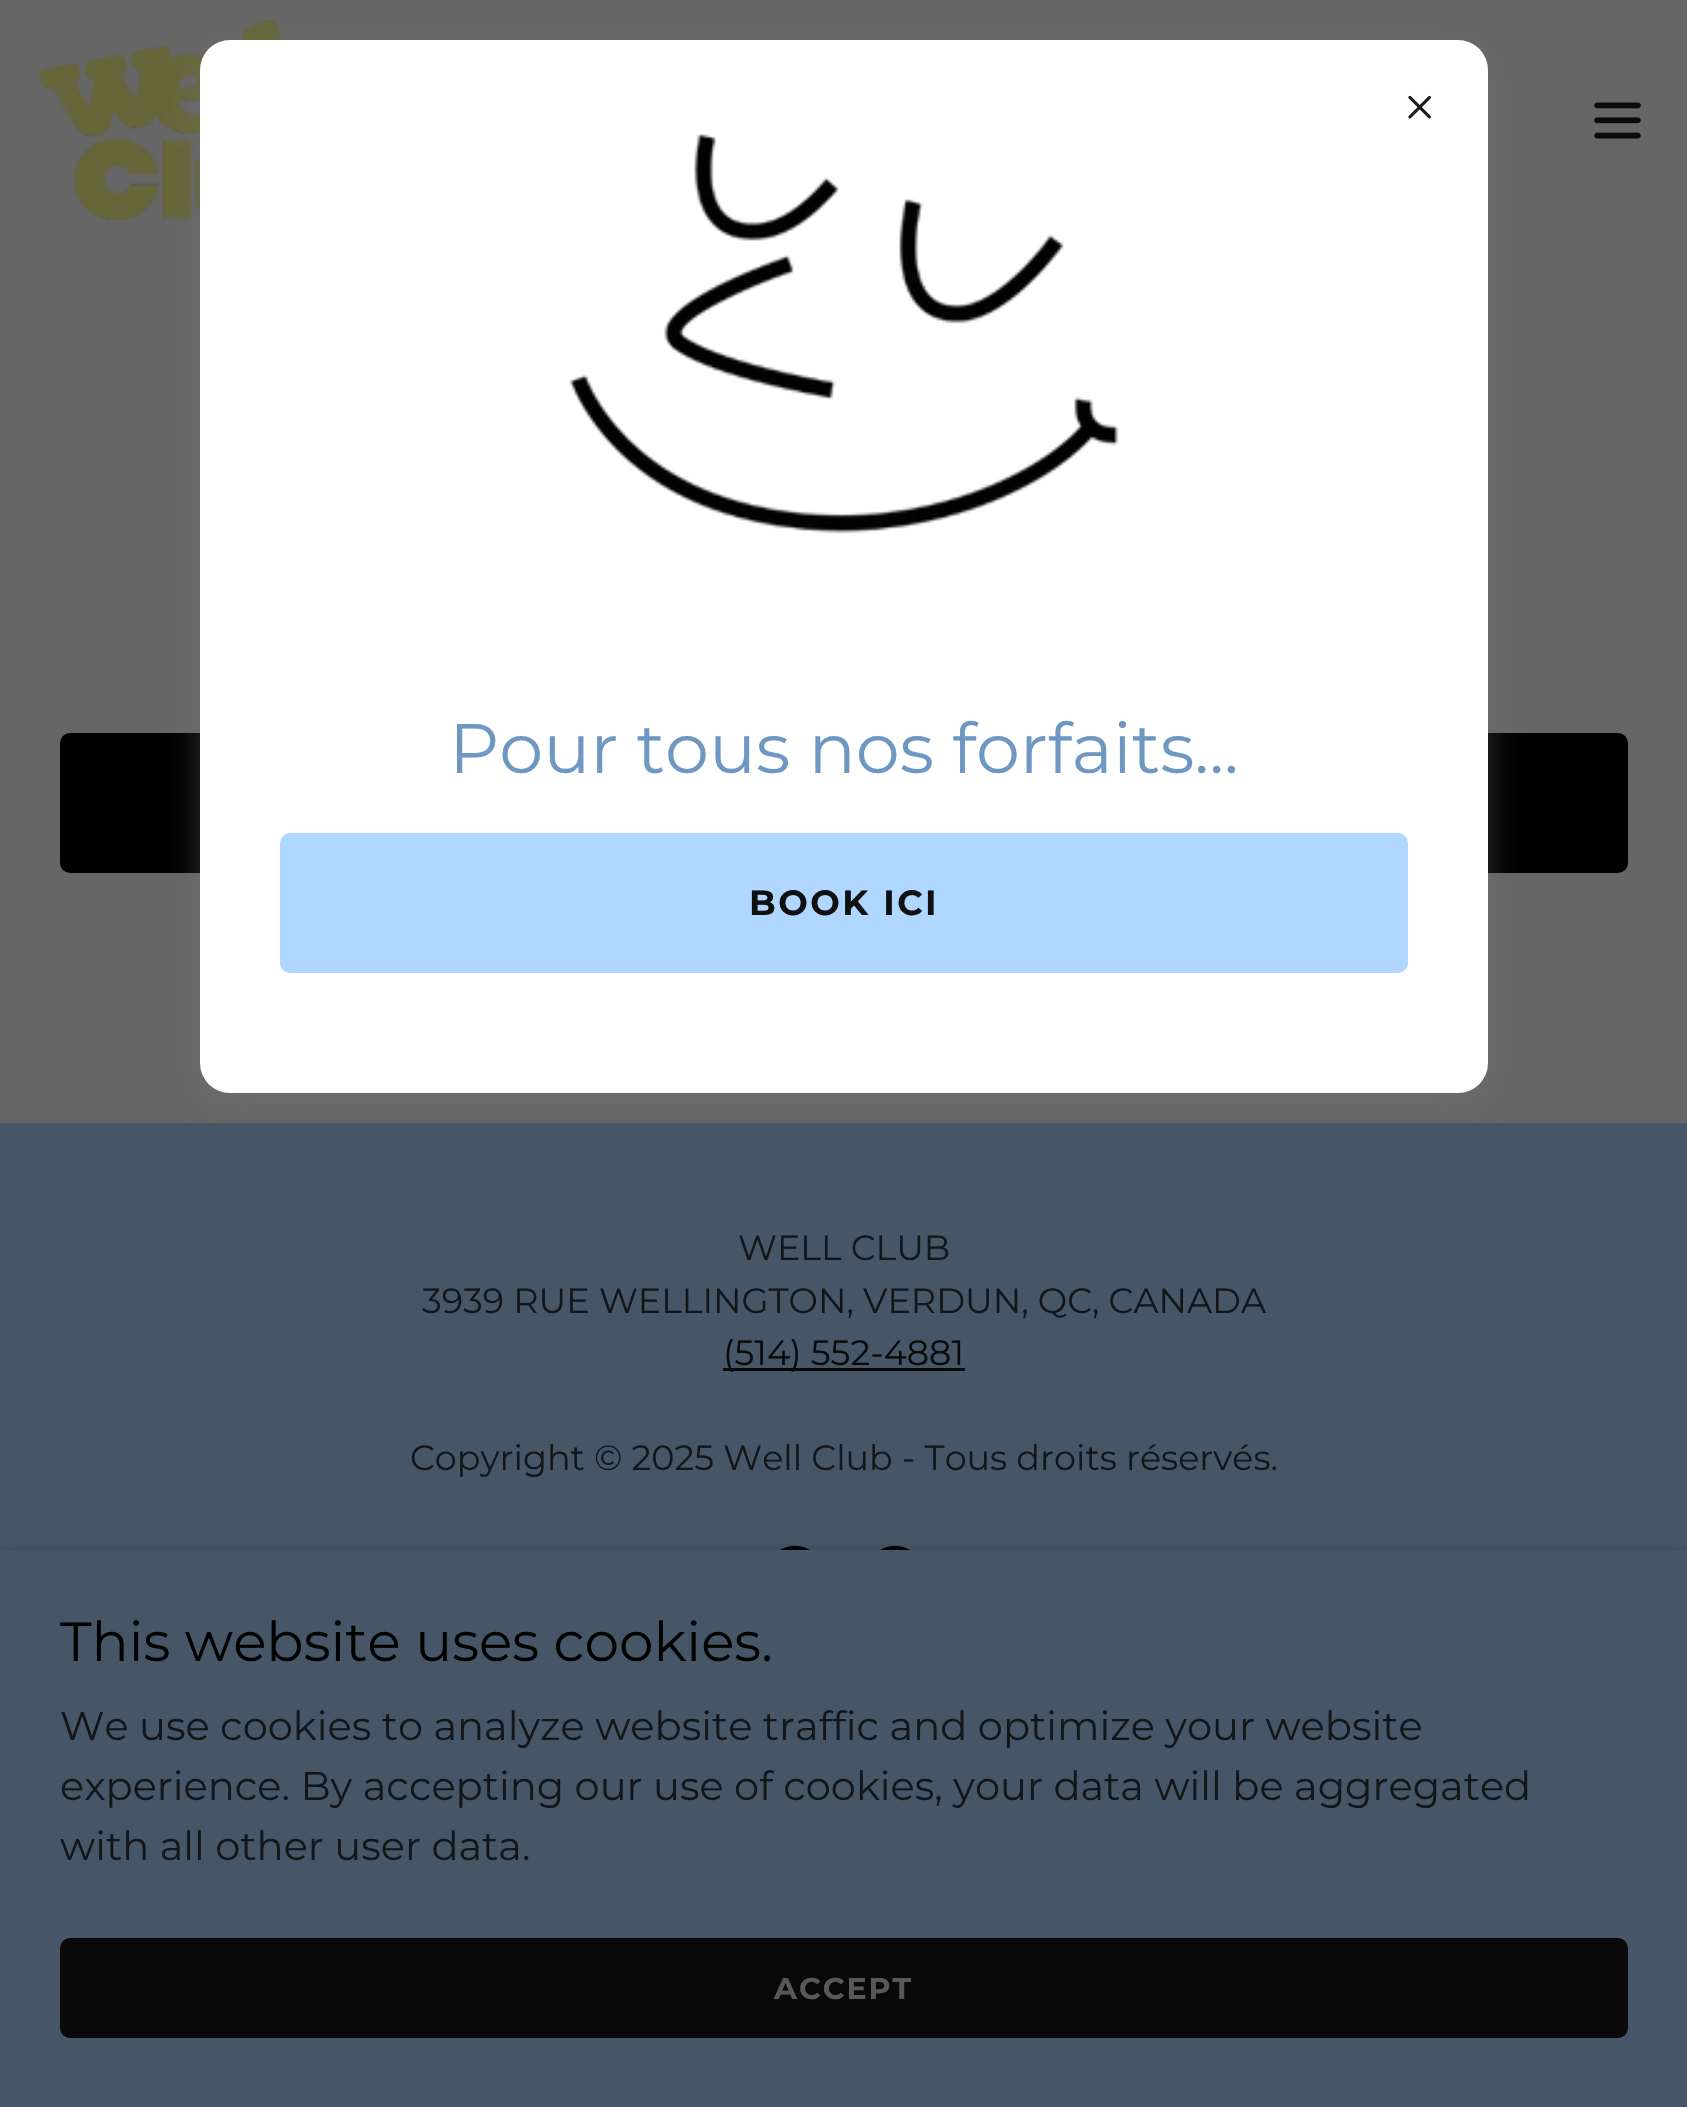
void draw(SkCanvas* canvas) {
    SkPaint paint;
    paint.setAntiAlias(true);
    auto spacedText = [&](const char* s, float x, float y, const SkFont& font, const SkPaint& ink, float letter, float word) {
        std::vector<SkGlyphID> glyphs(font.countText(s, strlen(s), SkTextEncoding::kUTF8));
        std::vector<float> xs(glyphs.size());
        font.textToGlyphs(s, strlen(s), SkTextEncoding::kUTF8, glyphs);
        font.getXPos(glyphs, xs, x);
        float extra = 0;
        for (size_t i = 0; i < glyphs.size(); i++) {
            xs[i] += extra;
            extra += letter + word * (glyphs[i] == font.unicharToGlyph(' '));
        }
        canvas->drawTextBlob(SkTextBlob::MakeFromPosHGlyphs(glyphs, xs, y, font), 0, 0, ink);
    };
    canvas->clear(0xFF465666);
    paint.setColor(0xFF666666);
    canvas->drawRect(SkRect::MakeXYWH(0, 0, 1687, 1123), paint);
    canvas->drawImageRect(SkImages::DeferredFromEncodedData(SkData::MakeFromFileName("img1.png")), SkRect::MakeXYWH(40, 20, 242, 200), SkSamplingOptions());
    canvas->drawImageRect(SkImages::DeferredFromEncodedData(SkData::MakeFromFileName("img2.png")), SkRect::MakeXYWH(1594, 102, 47, 37), SkSamplingOptions());
    paint.setColor(0xFF000000);
    canvas->drawRoundRect(SkRect::MakeXYWH(60, 733, 1568, 140), 10, 10, paint);
    paint.setColor(0x66757575);
    paint.setMaskFilter(SkMaskFilter::MakeBlur(kNormal_SkBlurStyle, 15));
    canvas->drawRoundRect(SkRect::MakeXYWH(200, 50, 1288, 1053), 30, 30, paint);
    paint.setMaskFilter(nullptr);
    paint.setColor(0xFFFFFFFF);
    canvas->drawRoundRect(SkRect::MakeXYWH(200, 40, 1288, 1053), 30, 30, paint);
    canvas->drawImageRect(SkImages::DeferredFromEncodedData(SkData::MakeFromFileName("img3.png")), SkRect::MakeXYWH(1408, 95, 23, 24), SkSamplingOptions());
    canvas->drawImageRect(SkImages::DeferredFromEncodedData(SkData::MakeFromFileName("img4.png")), SkRect::MakeXYWH(569, 134, 550, 400), SkSamplingOptions());
    SkFont font1(fontMgr->matchFamilyStyle("Montserrat", SkFontStyle::Normal()), 70);
    font1.setSubpixel(true);
    paint.setColor(0xFF6E98C2);
    canvas->drawString("Pour tous nos forfaits...", 449, 773, font1, paint);
    paint.setColor(0xFFB0D7FF);
    canvas->drawRoundRect(SkRect::MakeXYWH(280, 833, 1128, 140), 10, 10, paint);
    SkFont font2(fontMgr->matchFamilyStyle("Montserrat", SkFontStyle::Bold()), 35);
    font2.setSubpixel(true);
    paint.setColor(0xFF0F1010);
    spacedText("BOOK ICI", 749, 915, font2, paint, 2.5f, 0);
    SkFont font3(fontMgr->matchFamilyStyle("Montserrat", SkFontStyle::Normal()), 35);
    font3.setSubpixel(true);
    paint.setColor(0xFF131619);
    canvas->drawString("WELL CLUB", 738, 1260, font3, paint);
    canvas->drawString("3939 RUE WELLINGTON, VERDUN, QC, CANADA", 422, 1313, font3, paint);
    paint.setColor(0xFF090909);
    canvas->drawRect(SkRect::MakeXYWH(723, 1368, 242, 3), paint);
    canvas->drawString("(514) 552-4881", 723, 1365, font3, paint);
    paint.setColor(0xFF131619);
    canvas->drawString("Copyright © 2025 Well Club - Tous droits réservés.", 410, 1470, font3, paint);
    canvas->drawImageRect(SkImages::DeferredFromEncodedData(SkData::MakeFromFileName("img5.png")), SkRect::MakeXYWH(780, 1545, 30, 5), SkSamplingOptions());
    canvas->drawImageRect(SkImages::DeferredFromEncodedData(SkData::MakeFromFileName("img6.png")), SkRect::MakeXYWH(880, 1545, 30, 5), SkSamplingOptions());
    paint.setColor(0x4D000000);
    paint.setMaskFilter(SkMaskFilter::MakeBlur(kNormal_SkBlurStyle, 7.5f));
    canvas->drawRect(SkRect::MakeXYWH(0, 1555, 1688, 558), paint);
    paint.setMaskFilter(nullptr);
    paint.setColor(0xFF465666);
    canvas->drawRect(SkRect::MakeXYWH(0, 1550, 1687, 557), paint);
    SkFont font4(fontMgr->matchFamilyStyle("Montserrat", SkFontStyle::Normal()), 55);
    font4.setSubpixel(true);
    paint.setColor(0xFF000000);
    canvas->drawString("This website uses cookies.", 60, 1661, font4, paint);
    SkFont font5(fontMgr->matchFamilyStyle("Montserrat", SkFontStyle::Normal()), 40);
    font5.setSubpixel(true);
    paint.setColor(0xFF131619);
    canvas->drawString("We use cookies to analyze website traffic and optimize your website", 60, 1740, font5, paint);
    canvas->drawString("experience. By accepting our use of cookies, your data will be aggregated", 60, 1800, font5, paint);
    canvas->drawString("with all other user data.", 60, 1860, font5, paint);
    paint.setColor(0xFF090909);
    canvas->drawRoundRect(SkRect::MakeXYWH(60, 1938, 1568, 100), 10, 10, paint);
    SkFont font6(fontMgr->matchFamilyStyle("Montserrat", SkFontStyle::Bold()), 30);
    font6.setSubpixel(true);
    paint.setColor(0xFF585858);
    spacedText("ACCEPT", 774, 1999, font6, paint, 2, 0);
}
